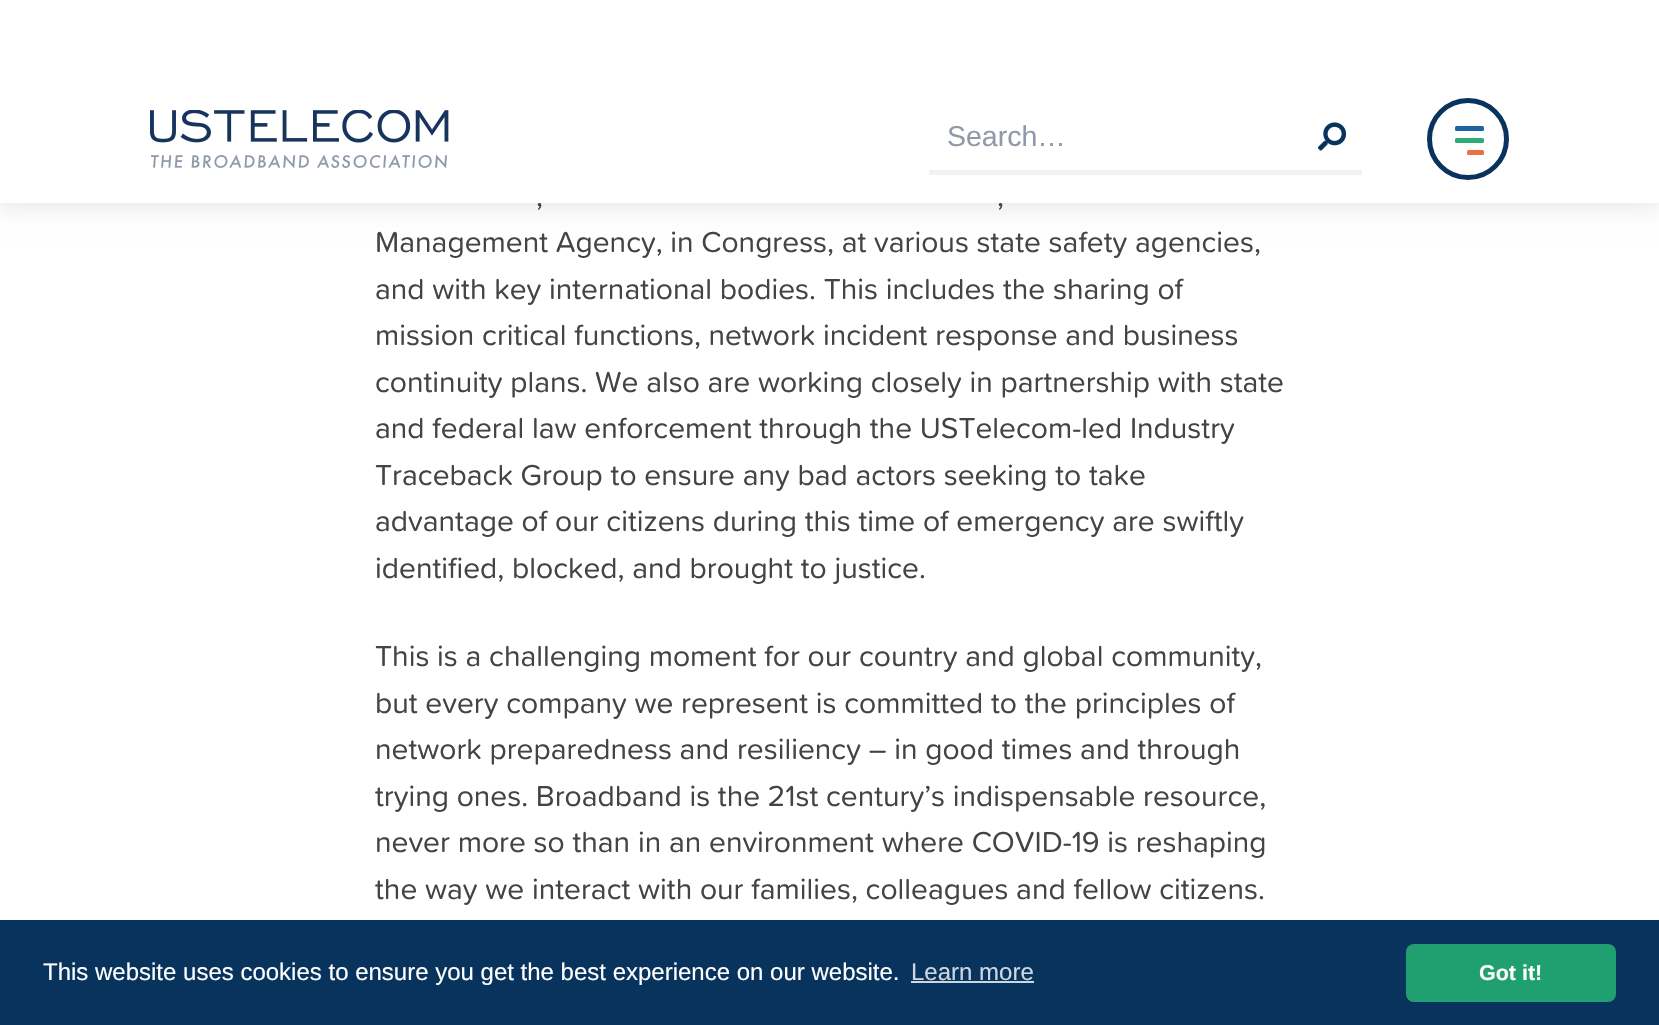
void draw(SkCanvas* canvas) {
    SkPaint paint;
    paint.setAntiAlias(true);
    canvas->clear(0xFFFFFFFF);
    paint.setColor(0x1A000000);
    paint.setMaskFilter(SkMaskFilter::MakeBlur(kNormal_SkBlurStyle, 12));
    canvas->drawRect(SkRect::MakeXYWH(-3, -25, 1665, 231), paint);
    paint.setMaskFilter(nullptr);
    paint.setColor(0xFFFFFFFF);
    canvas->drawRect(SkRect::MakeXYWH(0, 0, 1659, 203), paint);
    canvas->drawImageRect(SkImages::DeferredFromEncodedData(SkData::MakeFromFileName("img1.png")), SkRect::MakeXYWH(150, 110, 299, 58), SkSamplingOptions());
    paint.setColor(0xFFF0F3F5);
    canvas->drawRect(SkRect::MakeXYWH(929, 170, 433, 5), paint);
    SkFont font1(fontMgr->matchFamilyStyle("Liberation Sans", SkFontStyle::Normal()), 28.5f);
    font1.setSubpixel(true);
    paint.setColor(0xFF8F9AA9);
    canvas->drawString("Search…", 947, 146, font1, paint);
    canvas->drawImageRect(SkImages::DeferredFromEncodedData(SkData::MakeFromFileName("img2.png")), SkRect::MakeXYWH(1317, 122, 30, 29), SkSamplingOptions());
    paint.setStyle(SkPaint::kStroke_Style);
    paint.setStrokeWidth(5);
    paint.setColor(0xFF08335D);
    canvas->drawCircle(1468, 139, 38.5f, paint);
    paint.setStyle(SkPaint::kFill_Style);
    paint.setColor(0xFF2DAC74);
    canvas->drawRoundRect(SkRect::MakeXYWH(1455, 138, 29, 5), 1.5f, 1.5f, paint);
    paint.setColor(0xFF1E63A4);
    canvas->drawRoundRect(SkRect::MakeXYWH(1455, 126, 29, 5), 1.5f, 1.5f, paint);
    paint.setColor(0xFFEC7047);
    canvas->drawRoundRect(SkRect::MakeXYWH(1467, 150, 17, 5), 1.5f, 1.5f, paint);
    SkFont font2(fontMgr->matchFamilyStyle("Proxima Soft", SkFontStyle::Normal()), 30);
    font2.setSubpixel(true);
    paint.setColor(0xFF444444);
    canvas->drawString(",", 536, 206, font2, paint);
    canvas->drawString(",", 997, 206, font2, paint);
    canvas->drawString("Management Agency, in Congress, at various state safety agencies,", 375, 252, font2, paint);
    canvas->drawString("and with key international bodies. This includes the sharing of", 375, 299, font2, paint);
    canvas->drawString("mission critical functions, network incident response and business", 375, 345, font2, paint);
    canvas->drawString("continuity plans. We also are working closely in partnership with state", 375, 392, font2, paint);
    canvas->drawString("and federal law enforcement through the USTelecom-led Industry", 375, 438, font2, paint);
    canvas->drawString("Traceback Group to ensure any bad actors seeking to take", 375, 485, font2, paint);
    canvas->drawString("advantage of our citizens during this time of emergency are swiftly", 375, 531, font2, paint);
    canvas->drawString("identified, blocked, and brought to justice.", 375, 578, font2, paint);
    canvas->drawString("This is a challenging moment for our country and global community,", 375, 666, font2, paint);
    canvas->drawString("but every company we represent is committed to the principles of", 375, 713, font2, paint);
    canvas->drawString("network preparedness and resiliency – in good times and through", 375, 759, font2, paint);
    canvas->drawString("trying ones. Broadband is the 21st century’s indispensable resource,", 375, 806, font2, paint);
    canvas->drawString("never more so than in an environment where COVID-19 is reshaping", 375, 852, font2, paint);
    canvas->drawString("the way we interact with our families, colleagues and fellow citizens.", 375, 899, font2, paint);
    paint.setColor(0xFF08335D);
    canvas->drawRect(SkRect::MakeXYWH(0, 920, 1659, 105), paint);
    SkFont font3(fontMgr->matchFamilyStyle("Liberation Sans", SkFontStyle::Normal()), 24);
    font3.setSubpixel(true);
    paint.setColor(0xFFFFFFFF);
    canvas->drawString("This website uses cookies to ensure you get the best experience on our website.", 43, 980, font3, paint);
    paint.setColor(0xFFCED6DF);
    canvas->drawString("Learn more", 911, 980, font3, paint);
    canvas->drawRect(SkRect::MakeXYWH(911, 981, 123, 2), paint);
    paint.setColor(0xFF20A070);
    canvas->drawRoundRect(SkRect::MakeXYWH(1406, 944, 210, 58), 8, 8, paint);
    SkFont font4(fontMgr->matchFamilyStyle("Liberation Sans", SkFontStyle::Bold()), 21.5f);
    font4.setSubpixel(true);
    paint.setColor(0xFFFFFFFF);
    canvas->drawString("Got it!", 1479, 980, font4, paint);
}
